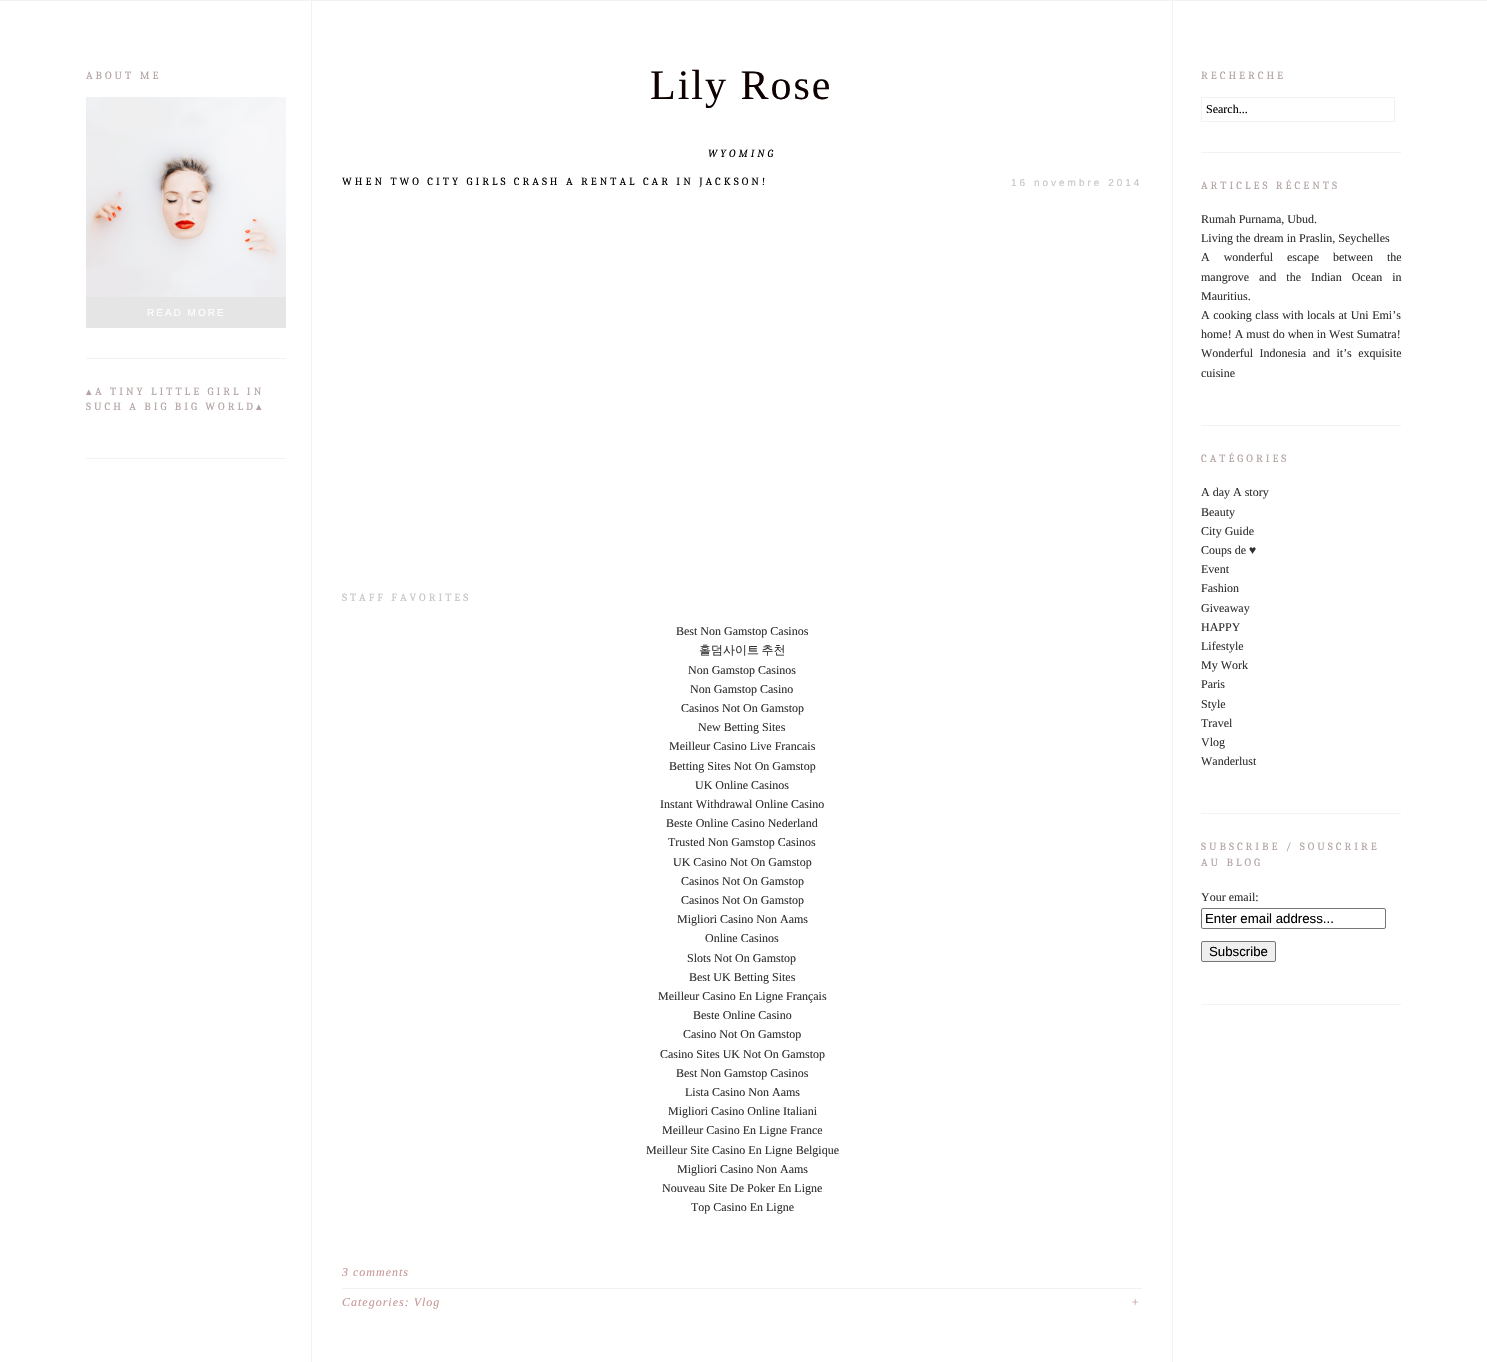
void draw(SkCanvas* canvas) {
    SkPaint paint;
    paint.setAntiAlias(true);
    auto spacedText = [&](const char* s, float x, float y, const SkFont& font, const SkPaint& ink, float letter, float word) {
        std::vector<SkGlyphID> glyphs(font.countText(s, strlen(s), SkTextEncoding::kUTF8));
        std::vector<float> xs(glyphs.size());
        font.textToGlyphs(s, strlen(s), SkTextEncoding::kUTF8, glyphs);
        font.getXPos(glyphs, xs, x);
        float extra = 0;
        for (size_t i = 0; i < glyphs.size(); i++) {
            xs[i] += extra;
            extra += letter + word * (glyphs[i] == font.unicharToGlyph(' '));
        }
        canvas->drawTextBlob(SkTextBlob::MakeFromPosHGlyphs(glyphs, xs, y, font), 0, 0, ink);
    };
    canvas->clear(0xFFFFFFFF);
    paint.setColor(0xFFF2F2F2);
    canvas->drawRect(SkRect::MakeXYWH(0, 0, 1487, 1), paint);
    canvas->drawRect(SkRect::MakeXYWH(86, 358, 200, 1), paint);
    SkFont font1(fontMgr->matchFamilyStyle("Caladea", SkFontStyle::Normal()), 11);
    font1.setSubpixel(true);
    paint.setColor(0xFFB3A3A3);
    spacedText("ABOUT ME", 86, 79, font1, paint, 3, 0);
    canvas->drawImageRect(SkImages::DeferredFromEncodedData(SkData::MakeFromFileName("img1.png")), SkRect::MakeXYWH(86, 97, 200, 200), SkSamplingOptions());
    paint.setColor(0xFFE5E5E5);
    canvas->drawRect(SkRect::MakeXYWH(86, 297, 200, 31), paint);
    SkFont font2(fontMgr->matchFamilyStyle("Liberation Sans", SkFontStyle::Normal()), 10);
    font2.setSubpixel(true);
    paint.setColor(0xFFFFFFFF);
    spacedText("READ MORE", 147, 316, font2, paint, 2, 0);
    paint.setColor(0xFFF2F2F2);
    canvas->drawRect(SkRect::MakeXYWH(86, 458, 200, 1), paint);
    SkFont font3(fontMgr->matchFamilyStyle("DejaVu Sans", SkFontStyle::Normal()), 11);
    font3.setSubpixel(true);
    paint.setColor(0xFFB3A3A3);
    spacedText("▴", 86, 395, font3, paint, 3, 0);
    spacedText("A TINY LITTLE GIRL IN", 95, 395, font1, paint, 3, 0);
    spacedText("SUCH A BIG BIG WORLD", 86, 410, font1, paint, 3, 0);
    spacedText("▴", 256, 410, font3, paint, 3, 0);
    paint.setColor(0xFFF2F2F2);
    canvas->drawRect(SkRect::MakeXYWH(1172, 1, 1, 1361), paint);
    canvas->drawRect(SkRect::MakeXYWH(311, 1, 1, 1361), paint);
    SkFont font4(fontMgr->matchFamilyStyle("Liberation Serif", SkFontStyle::Normal()), 42);
    font4.setSubpixel(true);
    paint.setColor(0xFF0F0101);
    spacedText("Lily Rose", 650, 99, font4, paint, 2, 0);
    SkFont font5(fontMgr->matchFamilyStyle("Caladea", SkFontStyle::Italic()), 11);
    font5.setSubpixel(true);
    paint.setColor(0xFF000000);
    spacedText("WYOMING", 708, 157, font5, paint, 3, 0);
    spacedText("WHEN TWO CITY GIRLS CRASH A RENTAL CAR IN JACKSON!", 342, 185, font1, paint, 3, 0);
    paint.setColor(0xFFC5C5C5);
    spacedText("16 novembre 2014", 1011, 186, font2, paint, 3, 0);
    spacedText("STAFF FAVORITES", 342, 601, font1, paint, 3, 0);
    SkFont font6(fontMgr->matchFamilyStyle("Liberation Serif", SkFontStyle::Normal()), 12);
    font6.setSubpixel(true);
    paint.setColor(0xFF303030);
    canvas->drawString("Best Non Gamstop Casinos", 676, 635, font6, paint);
    SkFont font7(fontMgr->matchFamilyStyle("WenQuanYi Zen Hei", SkFontStyle(500, SkFontStyle::kNormal_Width, SkFontStyle::kUpright_Slant)), 12);
    font7.setSubpixel(true);
    spacedText("홀덤사이트 추천", 699, 654, font7, paint, 0, -1);
    canvas->drawString("Non Gamstop Casinos", 688, 674, font6, paint);
    canvas->drawString("Non Gamstop Casino", 690, 693, font6, paint);
    canvas->drawString("Casinos Not On Gamstop", 681, 712, font6, paint);
    canvas->drawString("New Betting Sites", 698, 731, font6, paint);
    canvas->drawString("Meilleur Casino Live Francais", 669, 750, font6, paint);
    canvas->drawString("Betting Sites Not On Gamstop", 669, 770, font6, paint);
    canvas->drawString("UK Online Casinos", 695, 789, font6, paint);
    canvas->drawString("Instant Withdrawal Online Casino", 660, 808, font6, paint);
    canvas->drawString("Beste Online Casino Nederland", 666, 827, font6, paint);
    canvas->drawString("Trusted Non Gamstop Casinos", 668, 846, font6, paint);
    canvas->drawString("UK Casino Not On Gamstop", 673, 866, font6, paint);
    canvas->drawString("Casinos Not On Gamstop", 681, 885, font6, paint);
    canvas->drawString("Casinos Not On Gamstop", 681, 904, font6, paint);
    canvas->drawString("Migliori Casino Non Aams", 677, 923, font6, paint);
    canvas->drawString("Online Casinos", 705, 942, font6, paint);
    canvas->drawString("Slots Not On Gamstop", 687, 962, font6, paint);
    canvas->drawString("Best UK Betting Sites", 689, 981, font6, paint);
    canvas->drawString("Meilleur Casino En Ligne Français", 658, 1000, font6, paint);
    canvas->drawString("Beste Online Casino", 693, 1019, font6, paint);
    canvas->drawString("Casino Not On Gamstop", 683, 1038, font6, paint);
    canvas->drawString("Casino Sites UK Not On Gamstop", 660, 1058, font6, paint);
    canvas->drawString("Best Non Gamstop Casinos", 676, 1077, font6, paint);
    canvas->drawString("Lista Casino Non Aams", 685, 1096, font6, paint);
    canvas->drawString("Migliori Casino Online Italiani", 668, 1115, font6, paint);
    canvas->drawString("Meilleur Casino En Ligne France", 662, 1134, font6, paint);
    canvas->drawString("Meilleur Site Casino En Ligne Belgique", 646, 1154, font6, paint);
    canvas->drawString("Migliori Casino Non Aams", 677, 1173, font6, paint);
    canvas->drawString("Nouveau Site De Poker En Ligne", 662, 1192, font6, paint);
    canvas->drawString("Top Casino En Ligne", 691, 1211, font6, paint);
    paint.setColor(0xFFF2F2F2);
    canvas->drawRect(SkRect::MakeXYWH(342, 1288, 800, 1), paint);
    SkFont font8(fontMgr->matchFamilyStyle("Liberation Serif", SkFontStyle::Italic()), 12);
    font8.setSubpixel(true);
    paint.setColor(0xFFC79797);
    spacedText("3 comments", 342, 1276, font8, paint, 1, 0);
    spacedText("Categories: Vlog", 342, 1306, font8, paint, 1, 0);
    spacedText("+", 1131, 1306, font8, paint, 3, 0);
    paint.setColor(0xFFF2F2F2);
    canvas->drawRect(SkRect::MakeXYWH(1201, 152, 200, 1), paint);
    paint.setColor(0xFFB3A3A3);
    spacedText("RECHERCHE", 1201, 79, font1, paint, 3, 0);
    paint.setStyle(SkPaint::kStroke_Style);
    paint.setStrokeWidth(1);
    paint.setColor(0xFFF2F2F2);
    canvas->drawRect(SkRect::MakeXYWH(1201.5f, 97.5f, 193, 24), paint);
    paint.setStyle(SkPaint::kFill_Style);
    paint.setColor(0xFF000000);
    canvas->drawString("Search...", 1206, 113, font6, paint);
    paint.setColor(0xFFF2F2F2);
    canvas->drawRect(SkRect::MakeXYWH(1201, 425, 200, 1), paint);
    paint.setColor(0xFFB3A3A3);
    spacedText("ARTICLES RÉCENTS", 1201, 189, font1, paint, 3, 0);
    paint.setColor(0xFF303030);
    canvas->drawString("Rumah Purnama, Ubud.", 1201, 223, font6, paint);
    canvas->drawString("Living the dream in Praslin, Seychelles", 1201, 242, font6, paint);
    spacedText("A wonderful escape between the", 1201, 261, font6, paint, 0, 11);
    spacedText("mangrove and the Indian Ocean in", 1201, 281, font6, paint, 0, 7);
    canvas->drawString("Mauritius.", 1201, 300, font6, paint);
    spacedText("A cooking class with locals at Uni Emi’s", 1201, 319, font6, paint, 0, 0.5f);
    canvas->drawString("home! A must do when in West Sumatra!", 1201, 338, font6, paint);
    spacedText("Wonderful Indonesia and it’s exquisite", 1201, 357, font6, paint, 0, 3.5f);
    canvas->drawString("cuisine", 1201, 377, font6, paint);
    paint.setColor(0xFFF2F2F2);
    canvas->drawRect(SkRect::MakeXYWH(1201, 813, 200, 1), paint);
    paint.setColor(0xFFB3A3A3);
    spacedText("CATÉGORIES", 1201, 462, font1, paint, 3, 0);
    paint.setColor(0xFF303030);
    canvas->drawString("A day A story", 1201, 496, font6, paint);
    canvas->drawString("Beauty", 1201, 516, font6, paint);
    canvas->drawString("City Guide", 1201, 535, font6, paint);
    canvas->drawString("Coups de ♥", 1201, 554, font6, paint);
    canvas->drawString("Event", 1201, 573, font6, paint);
    canvas->drawString("Fashion", 1201, 592, font6, paint);
    canvas->drawString("Giveaway", 1201, 612, font6, paint);
    canvas->drawString("HAPPY", 1201, 631, font6, paint);
    canvas->drawString("Lifestyle", 1201, 650, font6, paint);
    canvas->drawString("My Work", 1201, 669, font6, paint);
    canvas->drawString("Paris", 1201, 688, font6, paint);
    canvas->drawString("Style", 1201, 708, font6, paint);
    canvas->drawString("Travel", 1201, 727, font6, paint);
    canvas->drawString("Vlog", 1201, 746, font6, paint);
    canvas->drawString("Wanderlust", 1201, 765, font6, paint);
    paint.setColor(0xFFF2F2F2);
    canvas->drawRect(SkRect::MakeXYWH(1201, 1004, 200, 1), paint);
    paint.setColor(0xFFB3A3A3);
    spacedText("SUBSCRIBE / SOUSCRIRE", 1201, 850, font1, paint, 3, 0);
    spacedText("AU BLOG", 1201, 866, font1, paint, 3, 0);
    paint.setColor(0xFF303030);
    canvas->drawString("Your email:", 1201, 901, font6, paint);
    paint.setStyle(SkPaint::kStroke_Style);
    paint.setColor(0xFF767676);
    canvas->drawRoundRect(SkRect::MakeXYWH(1201.5f, 908.5f, 184, 20), 1.5f, 1.5f, paint);
    SkFont font9(fontMgr->matchFamilyStyle("Liberation Sans", SkFontStyle::Normal()), 13.25f);
    font9.setSubpixel(true);
    paint.setStyle(SkPaint::kFill_Style);
    paint.setColor(0xFF000000);
    canvas->drawString("Enter email address...", 1205, 923, font9, paint);
    paint.setColor(0xFFEFEFEF);
    canvas->drawRoundRect(SkRect::MakeXYWH(1201.5f, 941.5f, 74, 20), 1.5f, 1.5f, paint);
    paint.setStyle(SkPaint::kStroke_Style);
    paint.setColor(0xFF767676);
    canvas->drawRoundRect(SkRect::MakeXYWH(1201.5f, 941.5f, 74, 20), 1.5f, 1.5f, paint);
    paint.setStyle(SkPaint::kFill_Style);
    paint.setColor(0xFF000000);
    canvas->drawString("Subscribe", 1209, 956, font9, paint);
}
